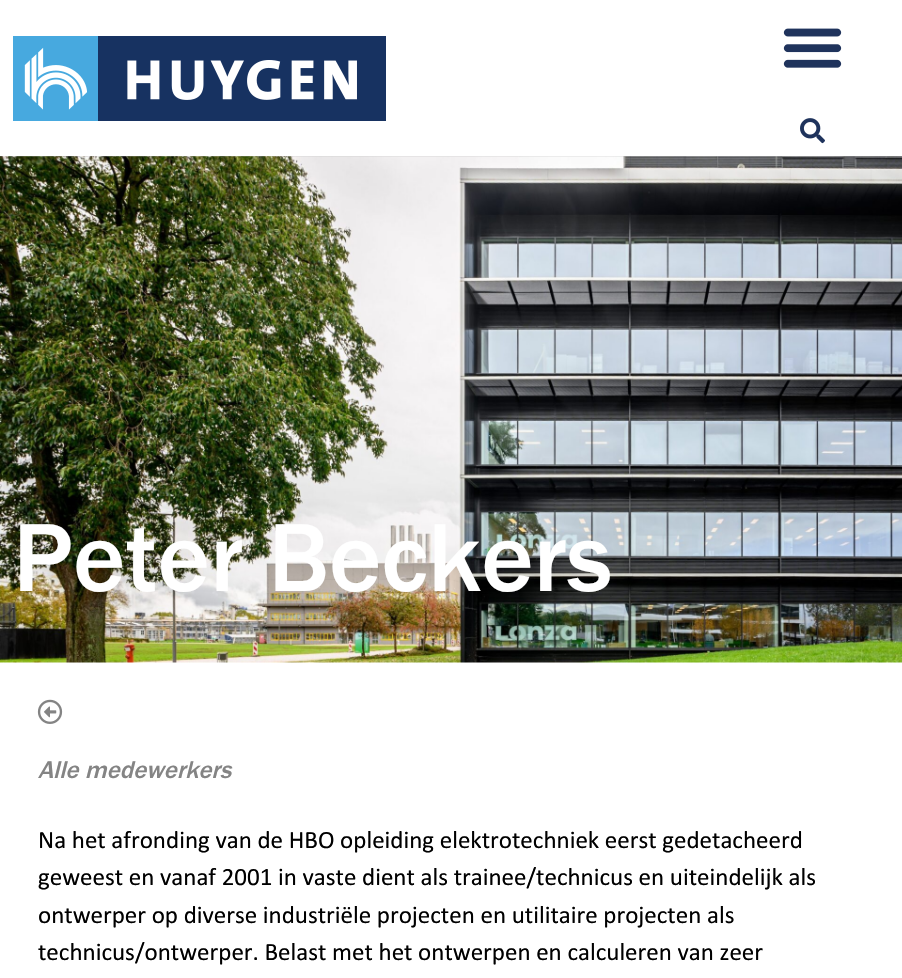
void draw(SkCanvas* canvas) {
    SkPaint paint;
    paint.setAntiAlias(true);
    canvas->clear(0xFFFFFFFF);
    canvas->save();
    canvas->clipRect(SkRect::MakeXYWH(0, 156, 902, 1));
    paint.setColor(0x80000000);
    paint.setMaskFilter(SkMaskFilter::MakeBlur(kNormal_SkBlurStyle, 6));
    canvas->drawRect(SkRect::MakeXYWH(0, 0, 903, 156), paint);
    paint.setMaskFilter(nullptr);
    canvas->restore();
    canvas->drawImageRect(SkImages::DeferredFromEncodedData(SkData::MakeFromFileName("img1.png")), SkRect::MakeXYWH(13, 36, 373, 85), SkSamplingOptions());
    canvas->drawImageRect(SkImages::DeferredFromEncodedData(SkData::MakeFromFileName("img2.png")), SkRect::MakeXYWH(783, 28, 59, 40), SkSamplingOptions());
    canvas->drawImageRect(SkImages::DeferredFromEncodedData(SkData::MakeFromFileName("img3.png")), SkRect::MakeXYWH(800, 118, 25, 26), SkSamplingOptions());
    canvas->drawImageRect(SkImages::DeferredFromEncodedData(SkData::MakeFromFileName("img4.png")), SkRect::MakeXYWH(0, 156, 902, 507), SkSamplingOptions());
    SkFont font1(fontMgr->matchFamilyStyle("Franklin Gothic", SkFontStyle(500, SkFontStyle::kNormal_Width, SkFontStyle::kUpright_Slant)), 100);
    font1.setSubpixel(true);
    paint.setColor(0xFFFFFFFF);
    canvas->drawString("Peter Beckers", 13, 591, font1, paint);
    canvas->drawImageRect(SkImages::DeferredFromEncodedData(SkData::MakeFromFileName("img5.png")), SkRect::MakeXYWH(37, 699, 26, 25), SkSamplingOptions());
    SkFont font2(fontMgr->matchFamilyStyle("Franklin Gothic", SkFontStyle(500, SkFontStyle::kNormal_Width, SkFontStyle::kItalic_Slant)), 25);
    font2.setSubpixel(true);
    paint.setColor(0xFF848484);
    canvas->drawString("Alle medewerkers", 38, 778, font2, paint);
    SkFont font3(fontMgr->matchFamilyStyle("Calibri", SkFontStyle::Normal()), 25);
    font3.setSubpixel(true);
    paint.setColor(0xFF000000);
    canvas->drawString("Na het afronding van de HBO opleiding elektrotechniek eerst gedetacheerd", 38, 848, font3, paint);
    canvas->drawString("geweest en vanaf 2001 in vaste dient als trainee/technicus en uiteindelijk als", 38, 885, font3, paint);
    canvas->drawString("ontwerper op diverse industriële projecten en utilitaire projecten als", 38, 923, font3, paint);
    canvas->drawString("technicus/ontwerper. Belast met het ontwerpen en calculeren van zeer", 38, 960, font3, paint);
}
